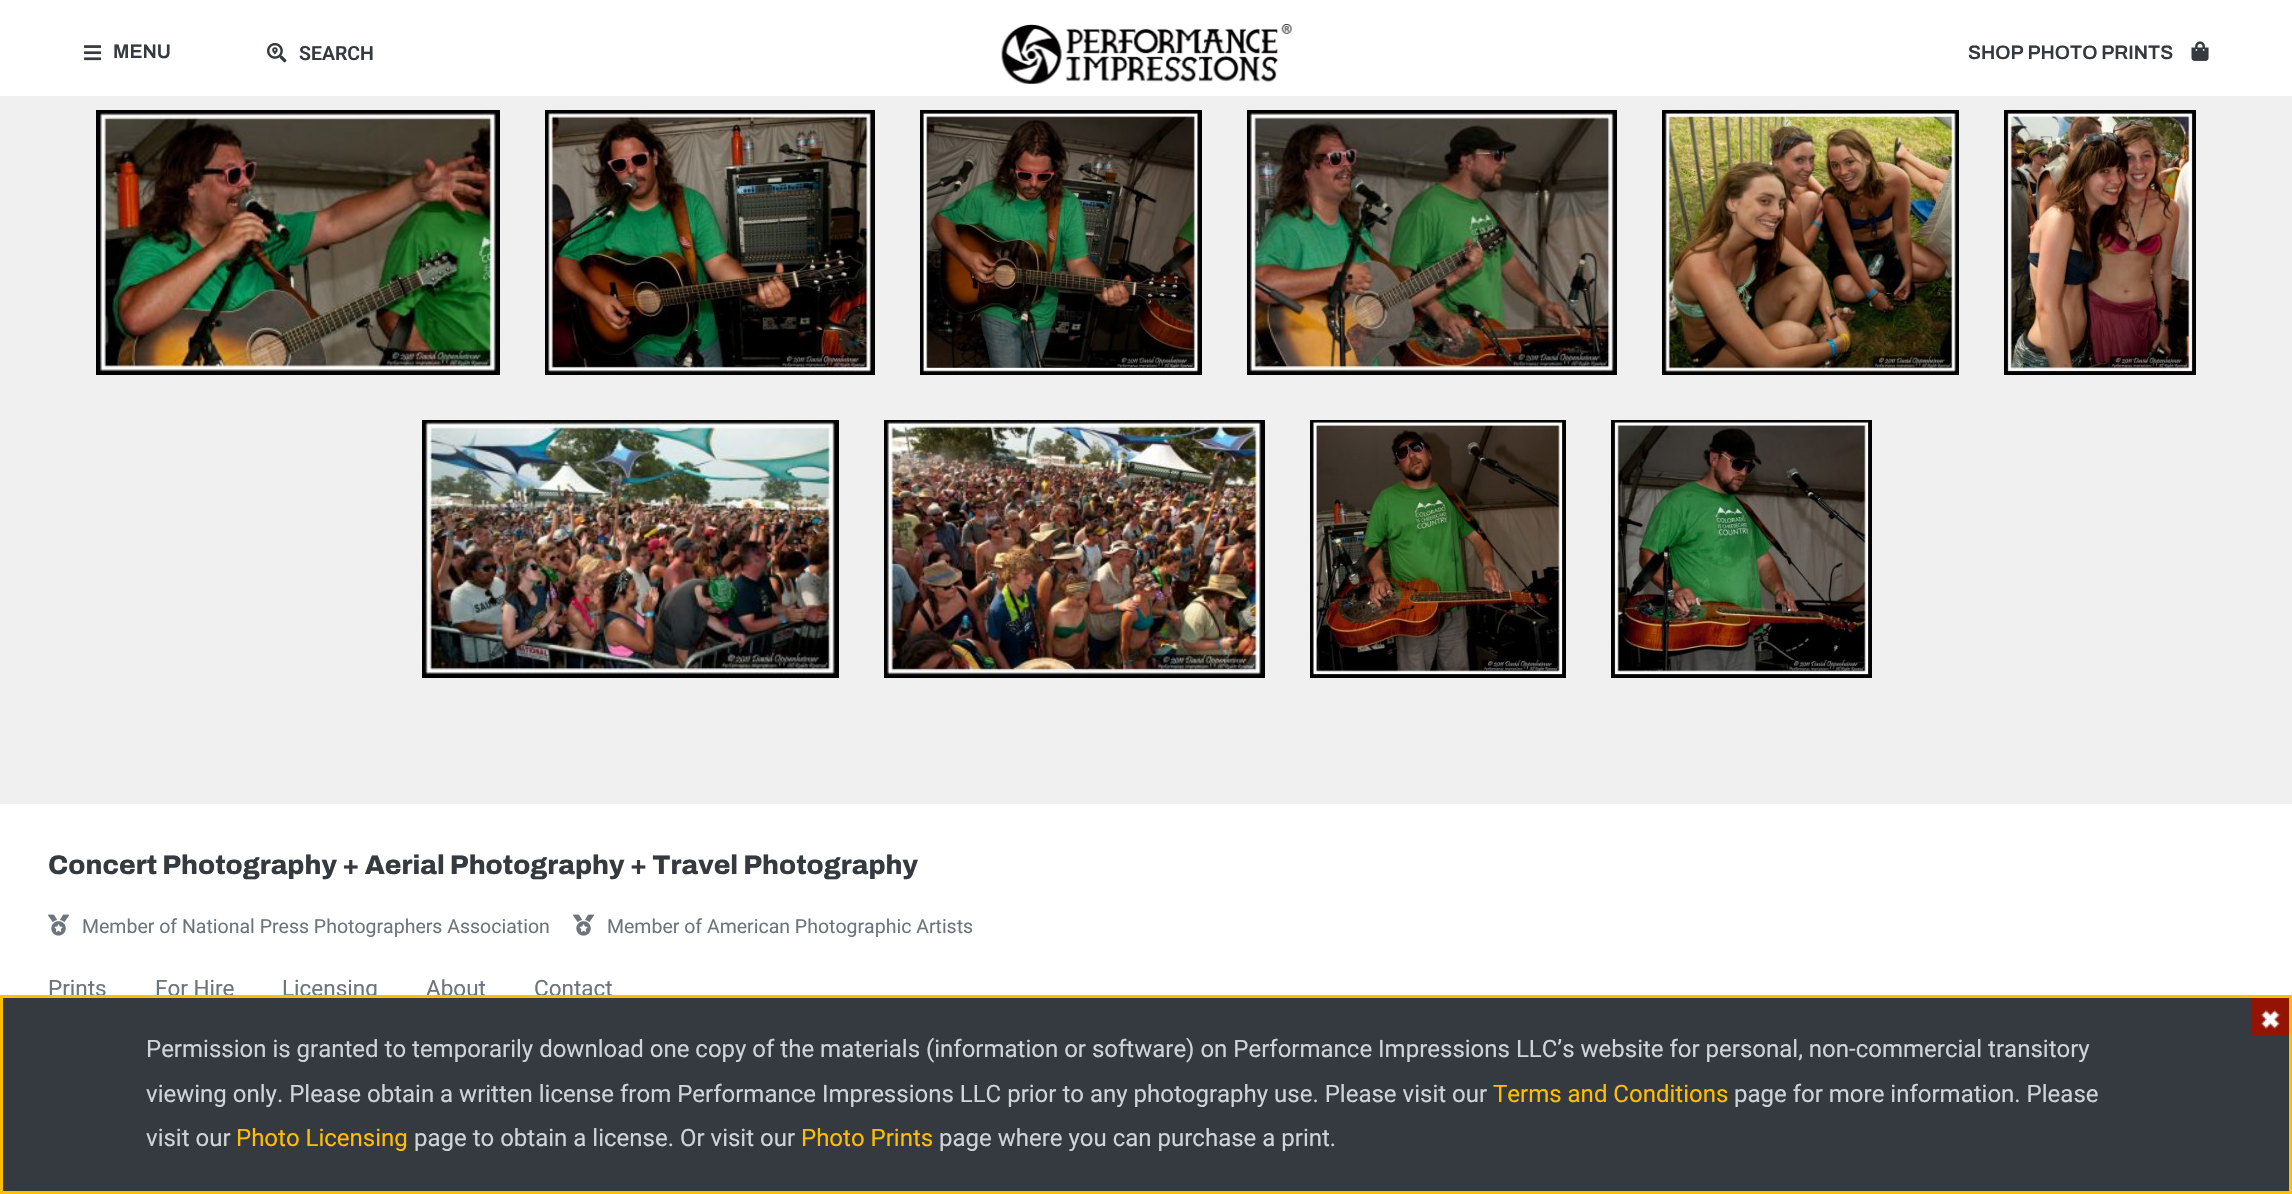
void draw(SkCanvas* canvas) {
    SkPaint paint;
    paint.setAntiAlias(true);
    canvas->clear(0xFFF0F0F0);
    paint.setColor(0xFFFFFFFF);
    canvas->drawRect(SkRect::MakeXYWH(0, 0, 2292, 96), paint);
    canvas->drawImageRect(SkImages::DeferredFromEncodedData(SkData::MakeFromFileName("img1.png")), SkRect::MakeXYWH(84, 45, 18, 16), SkSamplingOptions());
    SkFont font1(fontMgr->matchFamilyStyle("Archivo", SkFontStyle(600, SkFontStyle::kNormal_Width, SkFontStyle::kUpright_Slant)), 19.5f);
    font1.setSubpixel(true);
    paint.setColor(0xFF343A40);
    canvas->drawString("MENU", 113, 58, font1, paint);
    canvas->drawImageRect(SkImages::DeferredFromEncodedData(SkData::MakeFromFileName("img2.png")), SkRect::MakeXYWH(267, 42, 20, 21), SkSamplingOptions());
    SkFont font2(fontMgr->matchFamilyStyle("Roboto", SkFontStyle(600, SkFontStyle::kNormal_Width, SkFontStyle::kUpright_Slant)), 19.5f);
    font2.setSubpixel(true);
    canvas->drawString("SEARCH", 299, 60, font2, paint);
    canvas->drawImageRect(SkImages::DeferredFromEncodedData(SkData::MakeFromFileName("img3.png")), SkRect::MakeXYWH(1001, 24, 291, 60), SkSamplingOptions());
    canvas->drawString("SHOP PHOTO PRINTS", 1968, 59, font1, paint);
    canvas->drawImageRect(SkImages::DeferredFromEncodedData(SkData::MakeFromFileName("img4.png")), SkRect::MakeXYWH(2191, 41, 18, 20), SkSamplingOptions());
    paint.setStyle(SkPaint::kStroke_Style);
    paint.setStrokeWidth(2);
    paint.setColor(0xFF000000);
    canvas->drawRect(SkRect::MakeXYWH(97, 111, 402, 263), paint);
    canvas->drawImageRect(SkImages::DeferredFromEncodedData(SkData::MakeFromFileName("img5.png")), SkRect::MakeXYWH(97, 111, 401, 262), SkSamplingOptions());
    canvas->drawRect(SkRect::MakeXYWH(546, 111, 328, 263), paint);
    canvas->drawImageRect(SkImages::DeferredFromEncodedData(SkData::MakeFromFileName("img6.png")), SkRect::MakeXYWH(546, 111, 327, 262), SkSamplingOptions());
    canvas->drawRect(SkRect::MakeXYWH(921, 111, 280, 263), paint);
    canvas->drawImageRect(SkImages::DeferredFromEncodedData(SkData::MakeFromFileName("img7.png")), SkRect::MakeXYWH(921, 111, 279, 262), SkSamplingOptions());
    canvas->drawRect(SkRect::MakeXYWH(1248, 111, 368, 263), paint);
    canvas->drawImageRect(SkImages::DeferredFromEncodedData(SkData::MakeFromFileName("img8.png")), SkRect::MakeXYWH(1248, 111, 368, 263), SkSamplingOptions());
    canvas->drawRect(SkRect::MakeXYWH(1663, 111, 295, 263), paint);
    canvas->drawImageRect(SkImages::DeferredFromEncodedData(SkData::MakeFromFileName("img9.png")), SkRect::MakeXYWH(1663, 111, 295, 262), SkSamplingOptions());
    canvas->drawRect(SkRect::MakeXYWH(2005, 111, 190, 263), paint);
    canvas->drawImageRect(SkImages::DeferredFromEncodedData(SkData::MakeFromFileName("img10.png")), SkRect::MakeXYWH(2005, 111, 190, 262), SkSamplingOptions());
    canvas->save();
    canvas->clipRect(SkRect::MakeXYWH(422, 420, 417, 258));
    canvas->drawRect(SkRect::MakeXYWH(423, 420, 415, 257), paint);
    canvas->restore();
    canvas->drawImageRect(SkImages::DeferredFromEncodedData(SkData::MakeFromFileName("img11.png")), SkRect::MakeXYWH(423, 420, 414, 256), SkSamplingOptions());
    canvas->save();
    canvas->clipRect(SkRect::MakeXYWH(884, 420, 381, 258));
    canvas->drawRect(SkRect::MakeXYWH(885, 420, 379, 257), paint);
    canvas->restore();
    canvas->drawImageRect(SkImages::DeferredFromEncodedData(SkData::MakeFromFileName("img12.png")), SkRect::MakeXYWH(885, 420, 378, 257), SkSamplingOptions());
    canvas->save();
    canvas->clipRect(SkRect::MakeXYWH(1310, 420, 256, 258));
    canvas->drawRect(SkRect::MakeXYWH(1311, 420, 254, 257), paint);
    canvas->restore();
    canvas->drawImageRect(SkImages::DeferredFromEncodedData(SkData::MakeFromFileName("img13.png")), SkRect::MakeXYWH(1311, 420, 253, 256), SkSamplingOptions());
    canvas->save();
    canvas->clipRect(SkRect::MakeXYWH(1611, 420, 261, 258));
    canvas->drawRect(SkRect::MakeXYWH(1612, 420, 259, 257), paint);
    canvas->restore();
    canvas->drawImageRect(SkImages::DeferredFromEncodedData(SkData::MakeFromFileName("img14.png")), SkRect::MakeXYWH(1613, 420, 257, 257), SkSamplingOptions());
    paint.setStyle(SkPaint::kFill_Style);
    paint.setColor(0xFFFFFFFF);
    canvas->drawRect(SkRect::MakeXYWH(0, 804, 2292, 191), paint);
    SkFont font3(fontMgr->matchFamilyStyle("Archivo", SkFontStyle(800, SkFontStyle::kNormal_Width, SkFontStyle::kUpright_Slant)), 27);
    font3.setSubpixel(true);
    paint.setColor(0xFF343A40);
    canvas->drawString("Concert Photography + Aerial Photography + Travel Photography", 48, 874, font3, paint);
    canvas->drawImageRect(SkImages::DeferredFromEncodedData(SkData::MakeFromFileName("img15.png")), SkRect::MakeXYWH(48, 914, 21, 22), SkSamplingOptions());
    SkFont font4(fontMgr->matchFamilyStyle("Roboto", SkFontStyle::Normal()), 19.5f);
    font4.setSubpixel(true);
    paint.setColor(0xFF6C757D);
    canvas->drawString("Member of National Press Photographers Association", 82, 933, font4, paint);
    canvas->drawImageRect(SkImages::DeferredFromEncodedData(SkData::MakeFromFileName("img15.png")), SkRect::MakeXYWH(573, 914, 21, 22), SkSamplingOptions());
    canvas->drawString("Member of American Photographic Artists", 607, 933, font4, paint);
    SkFont font5(fontMgr->matchFamilyStyle("Roboto", SkFontStyle::Normal()), 22.5f);
    font5.setSubpixel(true);
    canvas->drawString("Prints", 48, 996, font5, paint);
    canvas->drawString("For Hire", 155, 996, font5, paint);
    canvas->drawString("Licensing", 282, 996, font5, paint);
    canvas->drawString("About", 426, 996, font5, paint);
    canvas->drawString("Contact", 534, 996, font5, paint);
    paint.setColor(0xFF343A40);
    canvas->drawRect(SkRect::MakeXYWH(1.5f, 996.5f, 2289, 196), paint);
    paint.setStyle(SkPaint::kStroke_Style);
    paint.setStrokeWidth(3);
    paint.setColor(0xFFFFBF00);
    canvas->drawRect(SkRect::MakeXYWH(1.5f, 996.5f, 2289, 196), paint);
    paint.setStyle(SkPaint::kFill_Style);
    paint.setColor(0xFF951305);
    canvas->drawRect(SkRect::MakeXYWH(2252, 998, 37, 37), paint);
    canvas->drawImageRect(SkImages::DeferredFromEncodedData(SkData::MakeFromFileName("img16.png")), SkRect::MakeXYWH(2260, 1009, 21, 21), SkSamplingOptions());
    SkFont font6(fontMgr->matchFamilyStyle("Roboto", SkFontStyle::Normal()), 24);
    font6.setSubpixel(true);
    paint.setColor(0xFFCED4DA);
    canvas->drawString("Permission is granted to temporarily download one copy of the materials (information or software) on Performance Impressions LLC’s website for personal, non-commercial transitory", 146, 1057, font6, paint);
    canvas->drawString("viewing only. Please obtain a written license from Performance Impressions LLC prior to any photography use. Please visit our", 146, 1102, font6, paint);
    paint.setColor(0xFFFFBF00);
    canvas->drawString("Terms and Conditions", 1493, 1102, font6, paint);
    paint.setColor(0xFFCED4DA);
    canvas->drawString("page for more information. Please", 1734, 1102, font6, paint);
    canvas->drawString("visit our", 146, 1146, font6, paint);
    paint.setColor(0xFFFFBF00);
    canvas->drawString("Photo Licensing", 236, 1146, font6, paint);
    paint.setColor(0xFFCED4DA);
    canvas->drawString("page to obtain a license. Or visit our", 414, 1146, font6, paint);
    paint.setColor(0xFFFFBF00);
    canvas->drawString("Photo Prints", 801, 1146, font6, paint);
    paint.setColor(0xFFCED4DA);
    canvas->drawString("page where you can purchase a print.", 939, 1146, font6, paint);
}
